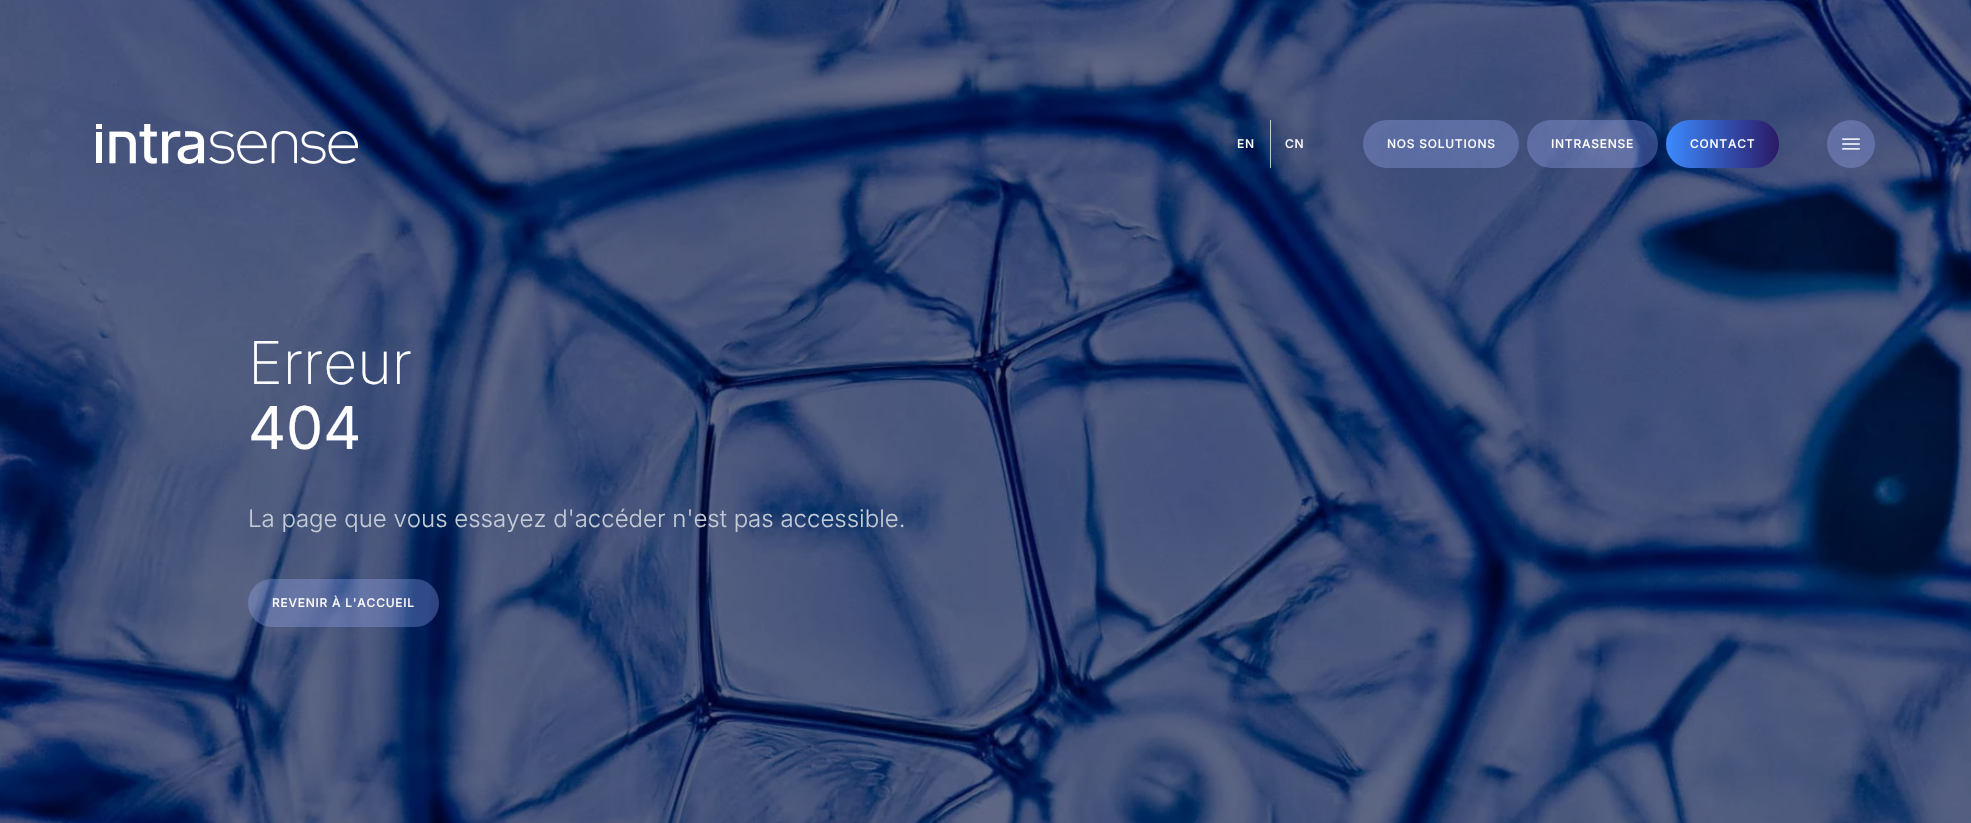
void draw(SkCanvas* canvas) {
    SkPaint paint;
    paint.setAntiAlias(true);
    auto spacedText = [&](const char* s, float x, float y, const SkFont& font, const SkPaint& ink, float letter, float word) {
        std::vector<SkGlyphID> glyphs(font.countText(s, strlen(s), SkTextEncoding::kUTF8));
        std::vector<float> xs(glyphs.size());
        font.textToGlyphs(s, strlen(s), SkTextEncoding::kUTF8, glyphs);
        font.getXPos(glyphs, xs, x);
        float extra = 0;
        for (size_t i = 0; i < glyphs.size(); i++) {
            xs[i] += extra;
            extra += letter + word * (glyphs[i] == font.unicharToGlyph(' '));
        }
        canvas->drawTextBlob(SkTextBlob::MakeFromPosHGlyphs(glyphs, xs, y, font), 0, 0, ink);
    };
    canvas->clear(0xFF000028);
    canvas->drawImageRect(SkImages::DeferredFromEncodedData(SkData::MakeFromFileName("img3.png")), SkRect::MakeXYWH(0, 0, 1971, 823), SkSamplingOptions());
    canvas->drawImageRect(SkImages::DeferredFromEncodedData(SkData::MakeFromFileName("img1.png")), SkRect::MakeXYWH(96, 124, 262, 40), SkSamplingOptions());
    paint.setColor(0xB8FEFFFF);
    canvas->drawRect(SkRect::MakeXYWH(1270, 120, 1, 48), paint);
    SkFont font1(fontMgr->matchFamilyStyle("Inter", SkFontStyle(500, SkFontStyle::kNormal_Width, SkFontStyle::kUpright_Slant)), 12);
    font1.setSubpixel(true);
    paint.setColor(0xFFFDFDFD);
    spacedText("EN", 1237, 148, font1, paint, 0.75f, 0);
    spacedText("CN", 1285, 148, font1, paint, 0.75f, 0);
    paint.setColor(0x4DA0B4FF);
    canvas->drawRoundRect(SkRect::MakeXYWH(1363, 120, 156, 48), 24, 24, paint);
    paint.setColor(0xFFFDFDFD);
    spacedText("NOS SOLUTIONS", 1387, 148, font1, paint, 0.75f, 0);
    paint.setColor(0x4DA0B4FF);
    canvas->drawRoundRect(SkRect::MakeXYWH(1527, 120, 131, 48), 24, 24, paint);
    paint.setColor(0xFFFDFDFD);
    spacedText("INTRASENSE", 1551, 148, font1, paint, 0.75f, 0);
    {
        const SkColor colors[] = {0xFF3C8BFF, 0xFF2B1965};
        const float stops[] = {0, 1};
        const SkPoint ends[] = {{1666, 144}, {1779, 144}};
        paint.setShader(SkGradientShader::MakeLinear(ends, colors, stops, 2, SkTileMode::kClamp));
        paint.setAlpha(255);
    }
    canvas->drawRoundRect(SkRect::MakeXYWH(1666, 120, 113, 48), 24, 24, paint);
    paint.setShader(nullptr);
    paint.setColor(0xFFFDFDFD);
    spacedText("CONTACT", 1690, 148, font1, paint, 0.75f, 0);
    paint.setColor(0x4DA0B4FF);
    canvas->drawCircle(1851, 144, 24, paint);
    canvas->drawImageRect(SkImages::DeferredFromEncodedData(SkData::MakeFromFileName("img2.png")), SkRect::MakeXYWH(1842, 138, 18, 12), SkSamplingOptions());
    SkFont font2(fontMgr->matchFamilyStyle("Inter", SkFontStyle(200, SkFontStyle::kNormal_Width, SkFontStyle::kUpright_Slant)), 59);
    font2.setSubpixel(true);
    paint.setColor(0xFFFDFDFD);
    canvas->drawString("Erreur", 248, 384, font2, paint);
    SkFont font3(fontMgr->matchFamilyStyle("Inter", SkFontStyle::Normal()), 59);
    font3.setSubpixel(true);
    canvas->drawString("404", 248, 449, font3, paint);
    SkFont font4(fontMgr->matchFamilyStyle("Inter", SkFontStyle(300, SkFontStyle::kNormal_Width, SkFontStyle::kUpright_Slant)), 24);
    font4.setSubpixel(true);
    paint.setColor(0xFFC4CBD7);
    canvas->drawString("La page que vous essayez d'accéder n'est pas accessible.", 248, 527, font4, paint);
    paint.setColor(0x4DA0B4FF);
    canvas->drawRoundRect(SkRect::MakeXYWH(248, 579, 191, 48), 24, 24, paint);
    paint.setColor(0xFFFDFDFD);
    spacedText("REVENIR À L'ACCUEIL", 272, 607, font1, paint, 0.75f, 0);
}
